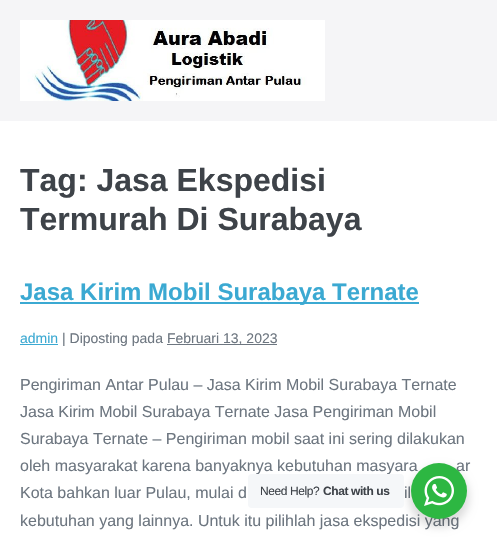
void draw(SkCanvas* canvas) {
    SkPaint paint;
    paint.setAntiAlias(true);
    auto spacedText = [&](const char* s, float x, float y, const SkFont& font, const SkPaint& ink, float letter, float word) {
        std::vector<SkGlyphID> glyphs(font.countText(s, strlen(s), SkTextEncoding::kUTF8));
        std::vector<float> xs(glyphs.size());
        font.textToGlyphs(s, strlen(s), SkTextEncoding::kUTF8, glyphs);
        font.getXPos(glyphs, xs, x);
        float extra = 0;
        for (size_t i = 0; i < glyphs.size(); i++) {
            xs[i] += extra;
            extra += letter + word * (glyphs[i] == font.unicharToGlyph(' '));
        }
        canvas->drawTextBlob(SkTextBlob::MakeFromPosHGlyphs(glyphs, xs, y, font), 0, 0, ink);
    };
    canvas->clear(0xFFFFFFFF);
    paint.setColor(0xFFF5F5F7);
    canvas->drawRect(SkRect::MakeXYWH(0, 0, 497, 121), paint);
    canvas->drawImageRect(SkImages::DeferredFromEncodedData(SkData::MakeFromFileName("img1.png")), SkRect::MakeXYWH(20, 20, 305, 81), SkSamplingOptions());
    SkFont font1(fontMgr->matchFamilyStyle("Liberation Sans", SkFontStyle::Bold()), 32);
    font1.setSubpixel(true);
    paint.setColor(0xFF3E4349);
    canvas->drawString("Tag: Jasa Ekspedisi", 20, 191, font1, paint);
    canvas->drawString("Termurah Di Surabaya", 20, 230, font1, paint);
    paint.setColor(0xFF3BA9D2);
    canvas->drawRect(SkRect::MakeXYWH(20, 302, 399, 2), paint);
    SkFont font2(fontMgr->matchFamilyStyle("Liberation Sans", SkFontStyle::Bold()), 24);
    font2.setSubpixel(true);
    canvas->drawString("Jasa Kirim Mobil Surabaya Ternate", 20, 300, font2, paint);
    SkFont font3(fontMgr->matchFamilyStyle("Liberation Sans", SkFontStyle::Normal()), 14);
    font3.setSubpixel(true);
    canvas->drawString("admin", 20, 343, font3, paint);
    canvas->drawRect(SkRect::MakeXYWH(20, 344, 38, 1), paint);
    paint.setColor(0xFF6D7680);
    canvas->drawString("| Diposting pada", 62, 343, font3, paint);
    canvas->drawRect(SkRect::MakeXYWH(167, 344, 110, 1), paint);
    canvas->drawString("Februari 13, 2023", 167, 343, font3, paint);
    SkFont font4(fontMgr->matchFamilyStyle("Liberation Sans", SkFontStyle::Normal()), 16);
    font4.setSubpixel(true);
    canvas->drawString("Pengiriman Antar Pulau – Jasa Kirim Mobil Surabaya Ternate", 20, 390, font4, paint);
    canvas->drawString("Jasa Kirim Mobil Surabaya Ternate Jasa Pengiriman Mobil", 20, 417, font4, paint);
    canvas->drawString("Surabaya Ternate – Pengiriman mobil saat ini sering dilakukan", 20, 444, font4, paint);
    canvas->drawString("oleh masyarakat karena banyaknya kebutuhan masyara", 20, 471, font4, paint);
    canvas->drawString("ar", 456, 471, font4, paint);
    canvas->drawString("Kota bahkan luar Pulau, mulai d", 20, 498, font4, paint);
    canvas->drawString("il", 404, 498, font4, paint);
    canvas->drawString("kebutuhan yang lainnya. Untuk itu pilihlah jasa ekspedisi yang", 20, 526, font4, paint);
    paint.setColor(0x24000000);
    paint.setMaskFilter(SkMaskFilter::MakeBlur(kNormal_SkBlurStyle, 4));
    canvas->drawRoundRect(SkRect::MakeXYWH(409, 467, 60, 60), 30, 30, paint);
    paint.setMaskFilter(nullptr);
    paint.setColor(0xFFF5F7F9);
    canvas->drawRoundRect(SkRect::MakeXYWH(248, 474, 156, 34), 4, 4, paint);
    SkFont font5(fontMgr->matchFamilyStyle("Liberation Sans", SkFontStyle::Normal()), 12);
    font5.setSubpixel(true);
    paint.setColor(0xFF3E4349);
    spacedText("Need Help?", 260, 495, font5, paint, -0.4f, 0);
    SkFont font6(fontMgr->matchFamilyStyle("Liberation Sans", SkFontStyle::Bold()), 12);
    font6.setSubpixel(true);
    spacedText("Chat with us", 323, 495, font6, paint, -0.4f, 0);
    paint.setColor(0xFF2DB742);
    canvas->drawCircle(439, 491, 28, paint);
    canvas->drawImageRect(SkImages::DeferredFromEncodedData(SkData::MakeFromFileName("img2.png")), SkRect::MakeXYWH(424, 476, 30, 30), SkSamplingOptions());
}
